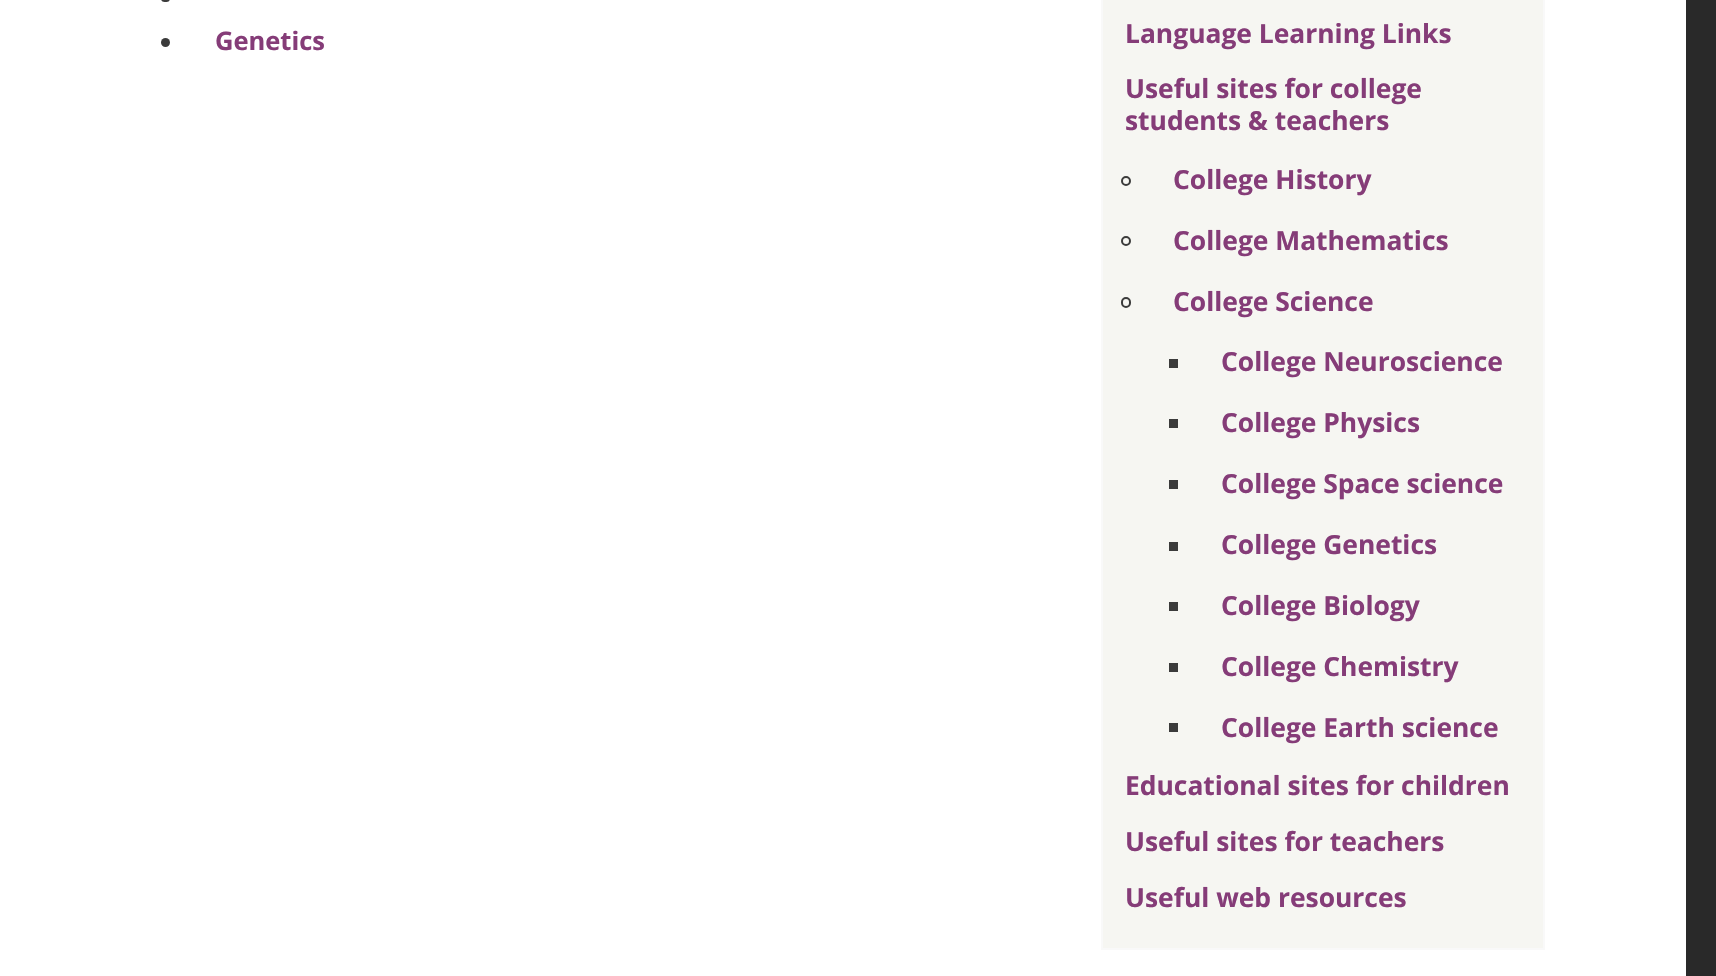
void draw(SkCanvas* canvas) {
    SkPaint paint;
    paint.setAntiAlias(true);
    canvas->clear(0xFF292929);
    paint.setColor(0xFFFFFFFF);
    canvas->drawRect(SkRect::MakeXYWH(0, 0, 1686, 976), paint);
    paint.setColor(0xFF3B3B3B);
    canvas->drawRoundRect(SkRect::MakeXYWH(161, -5, 9, 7), 4.5f, 4.5f, paint);
    canvas->drawCircle(165.5f, 42.5f, 4.5f, paint);
    SkFont font1(fontMgr->matchFamilyStyle("Open Sans", SkFontStyle::Bold()), 25.5f);
    font1.setSubpixel(true);
    paint.setColor(0xFF853C78);
    canvas->drawString("Genetics", 215, 50, font1, paint);
    paint.setColor(0xFFF6F6F2);
    canvas->drawRect(SkRect::MakeXYWH(1102, -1, 442, 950), paint);
    paint.setStyle(SkPaint::kStroke_Style);
    paint.setStrokeWidth(2);
    paint.setColor(0xFFF9F9F9);
    canvas->drawRect(SkRect::MakeXYWH(1102, -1, 442, 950), paint);
    SkFont font2(fontMgr->matchFamilyStyle("Open Sans", SkFontStyle::Bold()), 26.4f);
    font2.setSubpixel(true);
    paint.setStyle(SkPaint::kFill_Style);
    paint.setColor(0xFF853C78);
    canvas->drawString("Language Learning Links", 1125, 43, font2, paint);
    canvas->drawString("Useful sites for college", 1125, 98, font2, paint);
    canvas->drawString("students & teachers", 1125, 130, font2, paint);
    paint.setStyle(SkPaint::kStroke_Style);
    paint.setColor(0xFF3B3B3B);
    canvas->drawCircle(1126, 181, 4, paint);
    paint.setStyle(SkPaint::kFill_Style);
    paint.setColor(0xFF853C78);
    canvas->drawString("College History", 1173, 189, font2, paint);
    paint.setStyle(SkPaint::kStroke_Style);
    paint.setColor(0xFF3B3B3B);
    canvas->drawCircle(1126, 241, 4, paint);
    paint.setStyle(SkPaint::kFill_Style);
    paint.setColor(0xFF853C78);
    canvas->drawString("College Mathematics", 1173, 250, font2, paint);
    paint.setStyle(SkPaint::kStroke_Style);
    paint.setColor(0xFF3B3B3B);
    canvas->drawRoundRect(SkRect::MakeXYWH(1122, 298, 8, 9), 4, 4, paint);
    paint.setStyle(SkPaint::kFill_Style);
    paint.setColor(0xFF853C78);
    canvas->drawString("College Science", 1173, 311, font2, paint);
    paint.setColor(0xFF3B3B3B);
    canvas->drawRect(SkRect::MakeXYWH(1169, 359, 9, 9), paint);
    paint.setColor(0xFF853C78);
    canvas->drawString("College Neuroscience", 1221, 371, font2, paint);
    paint.setColor(0xFF3B3B3B);
    canvas->drawRect(SkRect::MakeXYWH(1169, 419, 9, 9), paint);
    paint.setColor(0xFF853C78);
    canvas->drawString("College Physics", 1221, 432, font2, paint);
    paint.setColor(0xFF3B3B3B);
    canvas->drawRect(SkRect::MakeXYWH(1169, 480, 9, 9), paint);
    paint.setColor(0xFF853C78);
    canvas->drawString("College Space science", 1221, 493, font2, paint);
    paint.setColor(0xFF3B3B3B);
    canvas->drawRect(SkRect::MakeXYWH(1169, 542, 9, 9), paint);
    paint.setColor(0xFF853C78);
    canvas->drawString("College Genetics", 1221, 554, font2, paint);
    paint.setColor(0xFF3B3B3B);
    canvas->drawRect(SkRect::MakeXYWH(1169, 602, 9, 9), paint);
    paint.setColor(0xFF853C78);
    canvas->drawString("College Biology", 1221, 615, font2, paint);
    paint.setColor(0xFF3B3B3B);
    canvas->drawRect(SkRect::MakeXYWH(1169, 663, 9, 9), paint);
    paint.setColor(0xFF853C78);
    canvas->drawString("College Chemistry", 1221, 676, font2, paint);
    paint.setColor(0xFF3B3B3B);
    canvas->drawRect(SkRect::MakeXYWH(1169, 723, 9, 9), paint);
    paint.setColor(0xFF853C78);
    canvas->drawString("College Earth science", 1221, 737, font2, paint);
    canvas->drawString("Educational sites for children", 1125, 795, font2, paint);
    canvas->drawString("Useful sites for teachers", 1125, 851, font2, paint);
    canvas->drawString("Useful web resources", 1125, 907, font2, paint);
}
